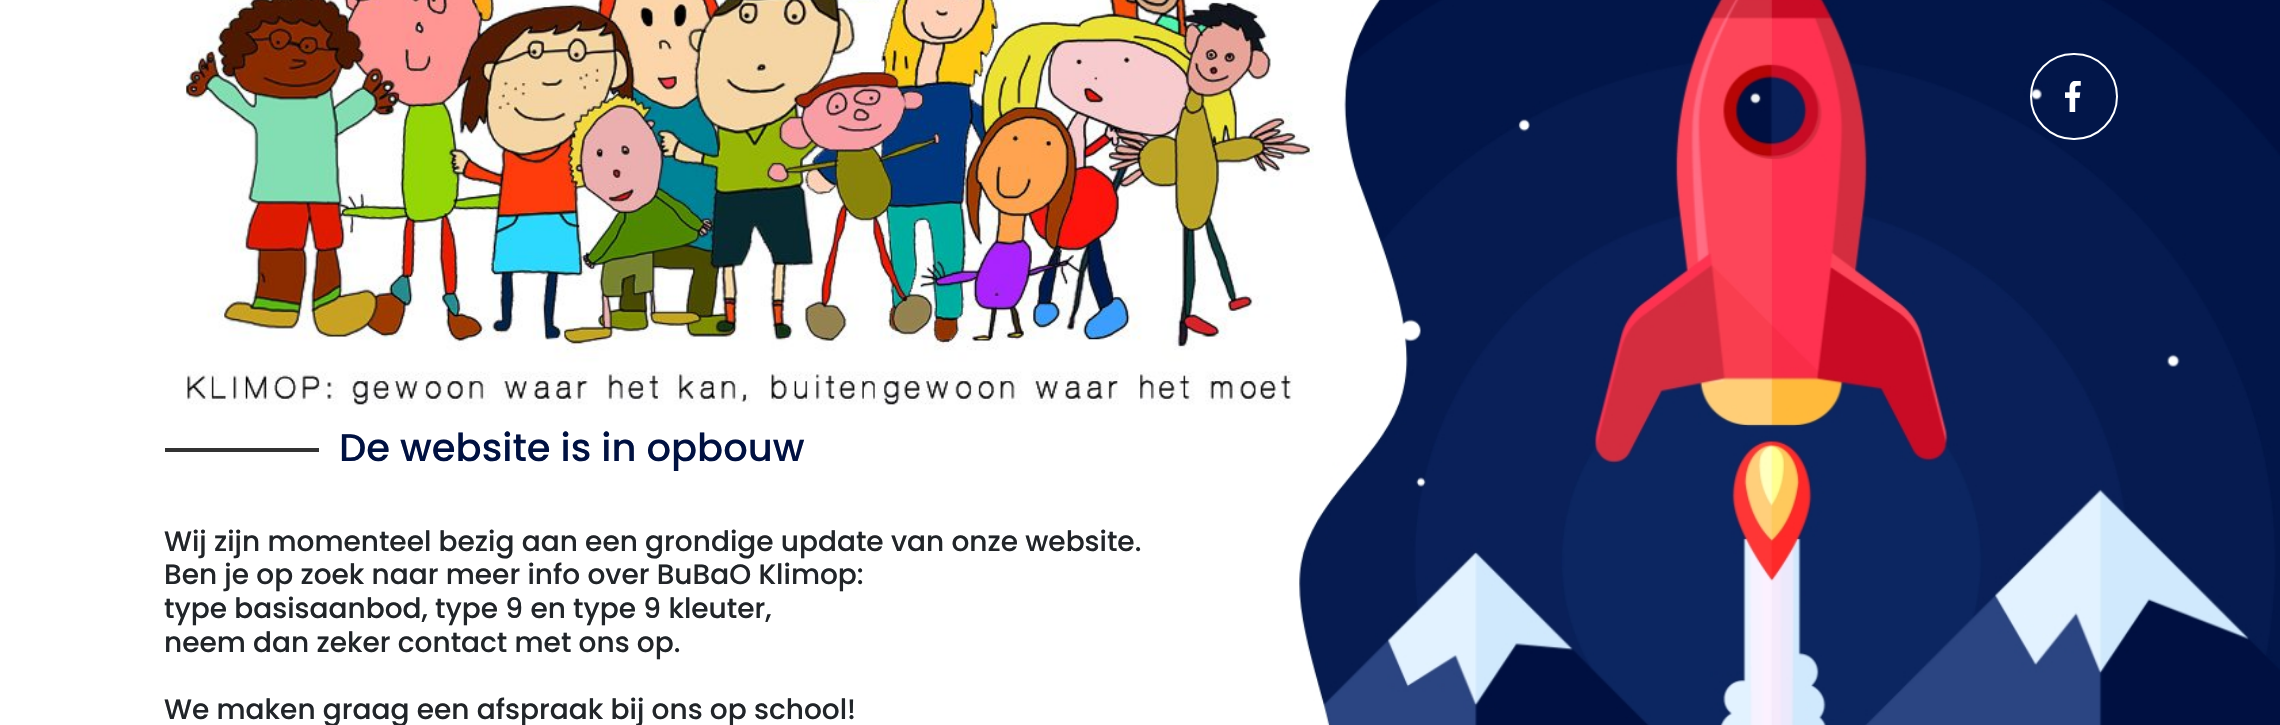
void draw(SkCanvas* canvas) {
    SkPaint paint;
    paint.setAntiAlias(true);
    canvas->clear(0xFFFFFFFF);
    canvas->drawImageRect(SkImages::DeferredFromEncodedData(SkData::MakeFromFileName("img1.png")), SkRect::MakeXYWH(1299, 0, 981, 725), SkSamplingOptions());
    paint.setStyle(SkPaint::kStroke_Style);
    paint.setStrokeWidth(2);
    paint.setColor(0xFFFFFFFF);
    canvas->drawRoundRect(SkRect::MakeXYWH(2031, 54, 86, 85), 42.5f, 42.5f, paint);
    canvas->drawImageRect(SkImages::DeferredFromEncodedData(SkData::MakeFromFileName("img2.png")), SkRect::MakeXYWH(2065, 81, 16, 31), SkSamplingOptions());
    canvas->drawImageRect(SkImages::DeferredFromEncodedData(SkData::MakeFromFileName("img3.png")), SkRect::MakeXYWH(185, 0, 1129, 405), SkSamplingOptions());
    paint.setStyle(SkPaint::kFill_Style);
    paint.setColor(0xFF333333);
    canvas->drawRect(SkRect::MakeXYWH(165, 448, 154, 4), paint);
    SkFont font1(fontMgr->matchFamilyStyle("Poppins", SkFontStyle(500, SkFontStyle::kNormal_Width, SkFontStyle::kUpright_Slant)), 38.5f);
    font1.setSubpixel(true);
    paint.setColor(0xFF001141);
    canvas->drawString("De website is in opbouw", 339, 461, font1, paint);
    SkFont font2(fontMgr->matchFamilyStyle("Poppins", SkFontStyle(500, SkFontStyle::kNormal_Width, SkFontStyle::kUpright_Slant)), 28);
    font2.setSubpixel(true);
    paint.setColor(0xFF212529);
    canvas->drawString("Wij zijn momenteel bezig aan een grondige update van onze website.", 164, 551, font2, paint);
    canvas->drawString("Ben je op zoek naar meer info over BuBaO Klimop:", 164, 584, font2, paint);
    canvas->drawString("type basisaanbod, type 9 en type 9 kleuter,", 164, 618, font2, paint);
    canvas->drawString("neem dan zeker contact met ons op.", 164, 652, font2, paint);
    canvas->drawString("We maken graag een afspraak bij ons op school!", 164, 719, font2, paint);
}
